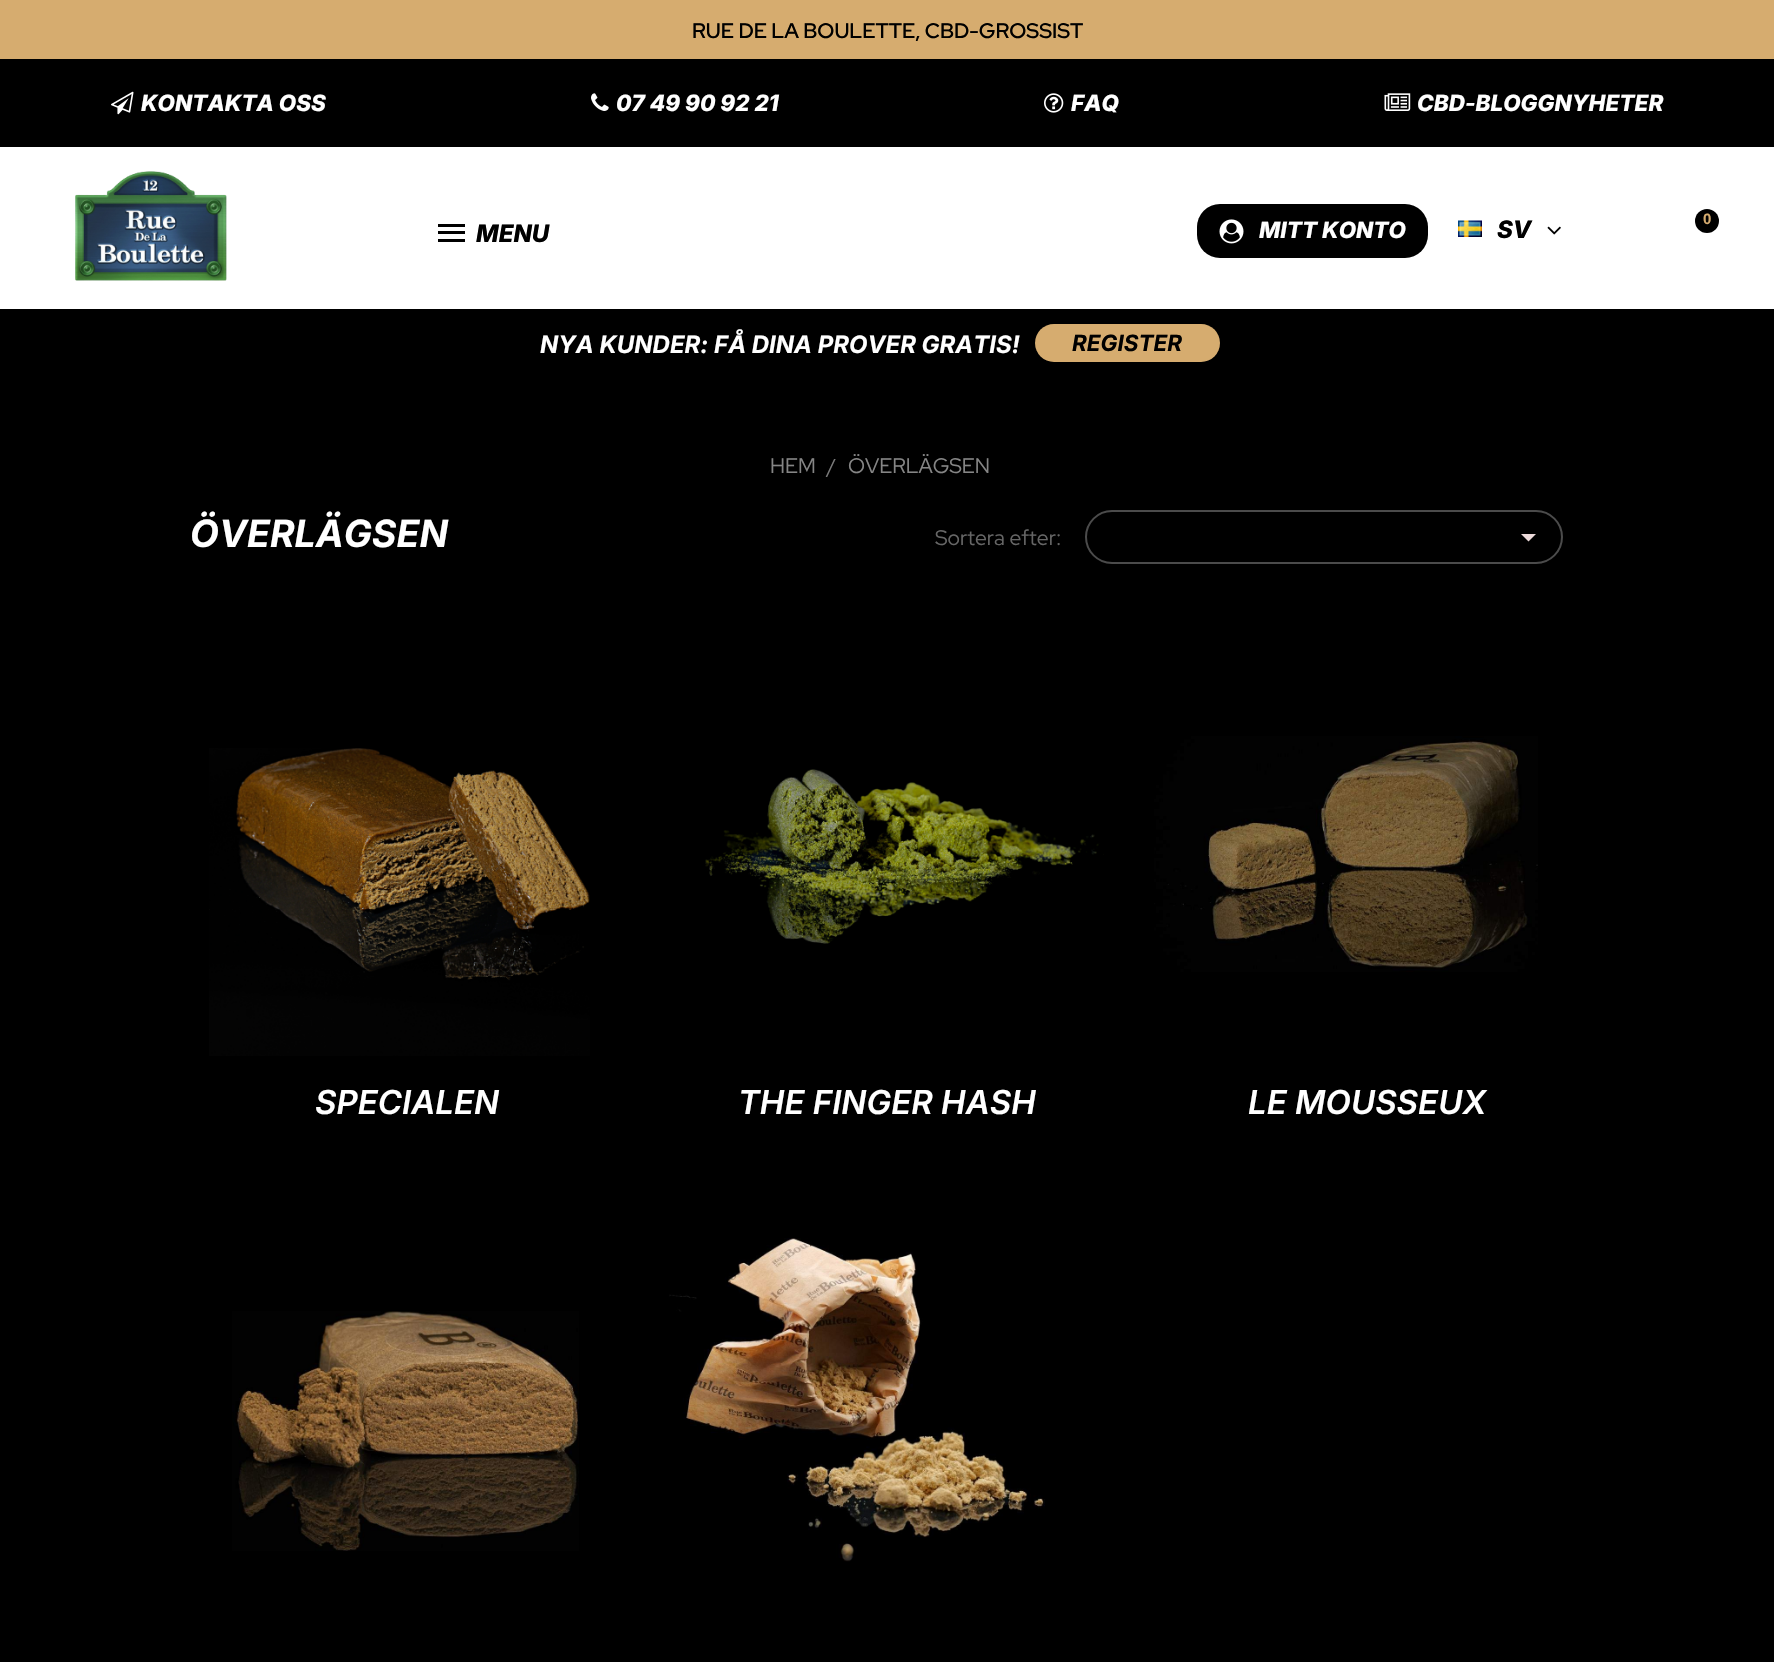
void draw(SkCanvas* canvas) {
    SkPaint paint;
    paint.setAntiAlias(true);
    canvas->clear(0xFFFFFFFF);
    paint.setColor(0xFFD6AC6F);
    canvas->drawRect(SkRect::MakeXYWH(0, 0, 1774, 59), paint);
    SkFont font1(fontMgr->matchFamilyStyle("Red Hat Display", SkFontStyle(600, SkFontStyle::kNormal_Width, SkFontStyle::kUpright_Slant)), 21);
    font1.setSubpixel(true);
    paint.setColor(0xFF000000);
    canvas->drawString("RUE DE LA BOULETTE, CBD-GROSSIST", 692, 38, font1, paint);
    canvas->drawRect(SkRect::MakeXYWH(0, 59, 1774, 88), paint);
    canvas->drawImageRect(SkImages::DeferredFromEncodedData(SkData::MakeFromFileName("img1.png")), SkRect::MakeXYWH(111, 91, 23, 24), SkSamplingOptions());
    SkFont font2(fontMgr->matchFamilyStyle("Inter", SkFontStyle(800, SkFontStyle::kNormal_Width, SkFontStyle::kItalic_Slant)), 22.5f);
    font2.setSubpixel(true);
    paint.setColor(0xFFFFFFFF);
    canvas->drawString("KONTAKTA OSS", 141, 111, font2, paint);
    canvas->drawImageRect(SkImages::DeferredFromEncodedData(SkData::MakeFromFileName("img2.png")), SkRect::MakeXYWH(591, 93, 18, 18), SkSamplingOptions());
    canvas->drawString("07 49 90 92 21", 616, 111, font2, paint);
    canvas->drawImageRect(SkImages::DeferredFromEncodedData(SkData::MakeFromFileName("img3.png")), SkRect::MakeXYWH(1044, 93, 20, 20), SkSamplingOptions());
    canvas->drawString("FAQ", 1071, 111, font2, paint);
    canvas->drawImageRect(SkImages::DeferredFromEncodedData(SkData::MakeFromFileName("img4.png")), SkRect::MakeXYWH(1384, 93, 27, 18), SkSamplingOptions());
    canvas->drawString("CBD-BLOGGNYHETER", 1417, 111, font2, paint);
    paint.setColor(0xFF000000);
    canvas->drawRect(SkRect::MakeXYWH(438, 224, 27, 3), paint);
    canvas->drawRect(SkRect::MakeXYWH(438, 231, 27, 3), paint);
    canvas->drawRect(SkRect::MakeXYWH(438, 239, 27, 3), paint);
    SkFont font3(fontMgr->matchFamilyStyle("Inter", SkFontStyle(800, SkFontStyle::kNormal_Width, SkFontStyle::kItalic_Slant)), 24);
    font3.setSubpixel(true);
    canvas->drawString("MENU", 476, 242, font3, paint);
    canvas->drawImageRect(SkImages::DeferredFromEncodedData(SkData::MakeFromFileName("img5.png")), SkRect::MakeXYWH(75, 171, 152, 110), SkSamplingOptions());
    canvas->drawRoundRect(SkRect::MakeXYWH(1197, 204, 231, 54), 23, 23, paint);
    canvas->drawImageRect(SkImages::DeferredFromEncodedData(SkData::MakeFromFileName("img6.png")), SkRect::MakeXYWH(1219, 219, 25, 25), SkSamplingOptions());
    paint.setColor(0xFFFFFFFF);
    canvas->drawString("MITT KONTO", 1259, 238, font2, paint);
    canvas->drawImageRect(SkImages::DeferredFromEncodedData(SkData::MakeFromFileName("img7.png")), SkRect::MakeXYWH(1458, 220, 24, 17), SkSamplingOptions());
    paint.setColor(0xFF000000);
    canvas->drawString("SV", 1497, 238, font3, paint);
    canvas->drawImageRect(SkImages::DeferredFromEncodedData(SkData::MakeFromFileName("img8.png")), SkRect::MakeXYWH(1547, 226, 14, 9), SkSamplingOptions());
    canvas->drawCircle(1707, 221, 12, paint);
    SkFont font4(fontMgr->matchFamilyStyle("Liberation Sans", SkFontStyle::Bold()), 15);
    font4.setSubpixel(true);
    paint.setColor(0xFFD6AC6F);
    canvas->drawString("0", 1703, 224, font4, paint);
    paint.setColor(0xFF000000);
    canvas->drawRect(SkRect::MakeXYWH(0, 309, 1774, 1353), paint);
    SkFont font5(fontMgr->matchFamilyStyle("Inter", SkFontStyle::BoldItalic()), 24);
    font5.setSubpixel(true);
    paint.setColor(0xFFFFFFFF);
    canvas->drawString("NYA KUNDER: FÅ DINA PROVER GRATIS!", 540, 353, font5, paint);
    paint.setColor(0xFFD6AC6F);
    canvas->drawRoundRect(SkRect::MakeXYWH(1035, 324, 185, 38), 19, 19, paint);
    SkFont font6(fontMgr->matchFamilyStyle("Inter", SkFontStyle::BoldItalic()), 22.5f);
    font6.setSubpixel(true);
    paint.setColor(0xFF000000);
    canvas->drawString("REGISTER", 1072, 351, font6, paint);
    SkFont font7(fontMgr->matchFamilyStyle("Red Hat Display", SkFontStyle::Normal()), 21);
    font7.setSubpixel(true);
    paint.setColor(0xFF858585);
    canvas->drawString("HEM", 770, 473, font7, paint);
    SkFont font8(fontMgr->matchFamilyStyle("Red Hat Display", SkFontStyle::Normal()), 20);
    font8.setSubpixel(true);
    paint.setColor(0xFF7A7A7A);
    canvas->drawString("/", 827, 473, font8, paint);
    paint.setColor(0xFF858585);
    canvas->drawString("ÖVERLÄGSEN", 848, 473, font7, paint);
    SkFont font9(fontMgr->matchFamilyStyle("Inter", SkFontStyle::BoldItalic()), 37.5f);
    font9.setSubpixel(true);
    paint.setColor(0xFFFFFFFF);
    canvas->drawString("ÖVERLÄGSEN", 190, 547, font9, paint);
    paint.setColor(0xFF666666);
    canvas->drawString("Sortera efter:", 935, 545, font7, paint);
    paint.setStyle(SkPaint::kStroke_Style);
    paint.setStrokeWidth(2);
    paint.setColor(0xFF4B4B4B);
    canvas->drawRoundRect(SkRect::MakeXYWH(1086, 511, 476, 52), 26, 26, paint);
    paint.setStyle(SkPaint::kFill_Style);
    paint.setColor(0xFFECDADA);
    canvas->drawPath(SkPathBuilder().moveTo(1521, 534).lineTo(1536, 534).lineTo(1528.5f, 541.5f).close().detach(), paint);
    canvas->drawImageRect(SkImages::DeferredFromEncodedData(SkData::MakeFromFileName("img9.png")), SkRect::MakeXYWH(209, 748, 381, 308), SkSamplingOptions());
    SkFont font10(fontMgr->matchFamilyStyle("Inter", SkFontStyle(600, SkFontStyle::kNormal_Width, SkFontStyle::kItalic_Slant)), 33);
    font10.setSubpixel(true);
    paint.setColor(0xFFFFFFFF);
    canvas->drawString("SPECIALEN", 315, 1114, font10, paint);
    canvas->drawImageRect(SkImages::DeferredFromEncodedData(SkData::MakeFromFileName("img10.png")), SkRect::MakeXYWH(705, 769, 399, 175), SkSamplingOptions());
    canvas->drawString("THE FINGER HASH", 738, 1114, font10, paint);
    canvas->drawImageRect(SkImages::DeferredFromEncodedData(SkData::MakeFromFileName("img11.png")), SkRect::MakeXYWH(1154, 736, 384, 236), SkSamplingOptions());
    canvas->drawString("LE MOUSSEUX", 1248, 1114, font10, paint);
    canvas->drawImageRect(SkImages::DeferredFromEncodedData(SkData::MakeFromFileName("img12.png")), SkRect::MakeXYWH(232, 1311, 347, 240), SkSamplingOptions());
    canvas->drawImageRect(SkImages::DeferredFromEncodedData(SkData::MakeFromFileName("img13.png")), SkRect::MakeXYWH(669, 1238, 376, 324), SkSamplingOptions());
}
